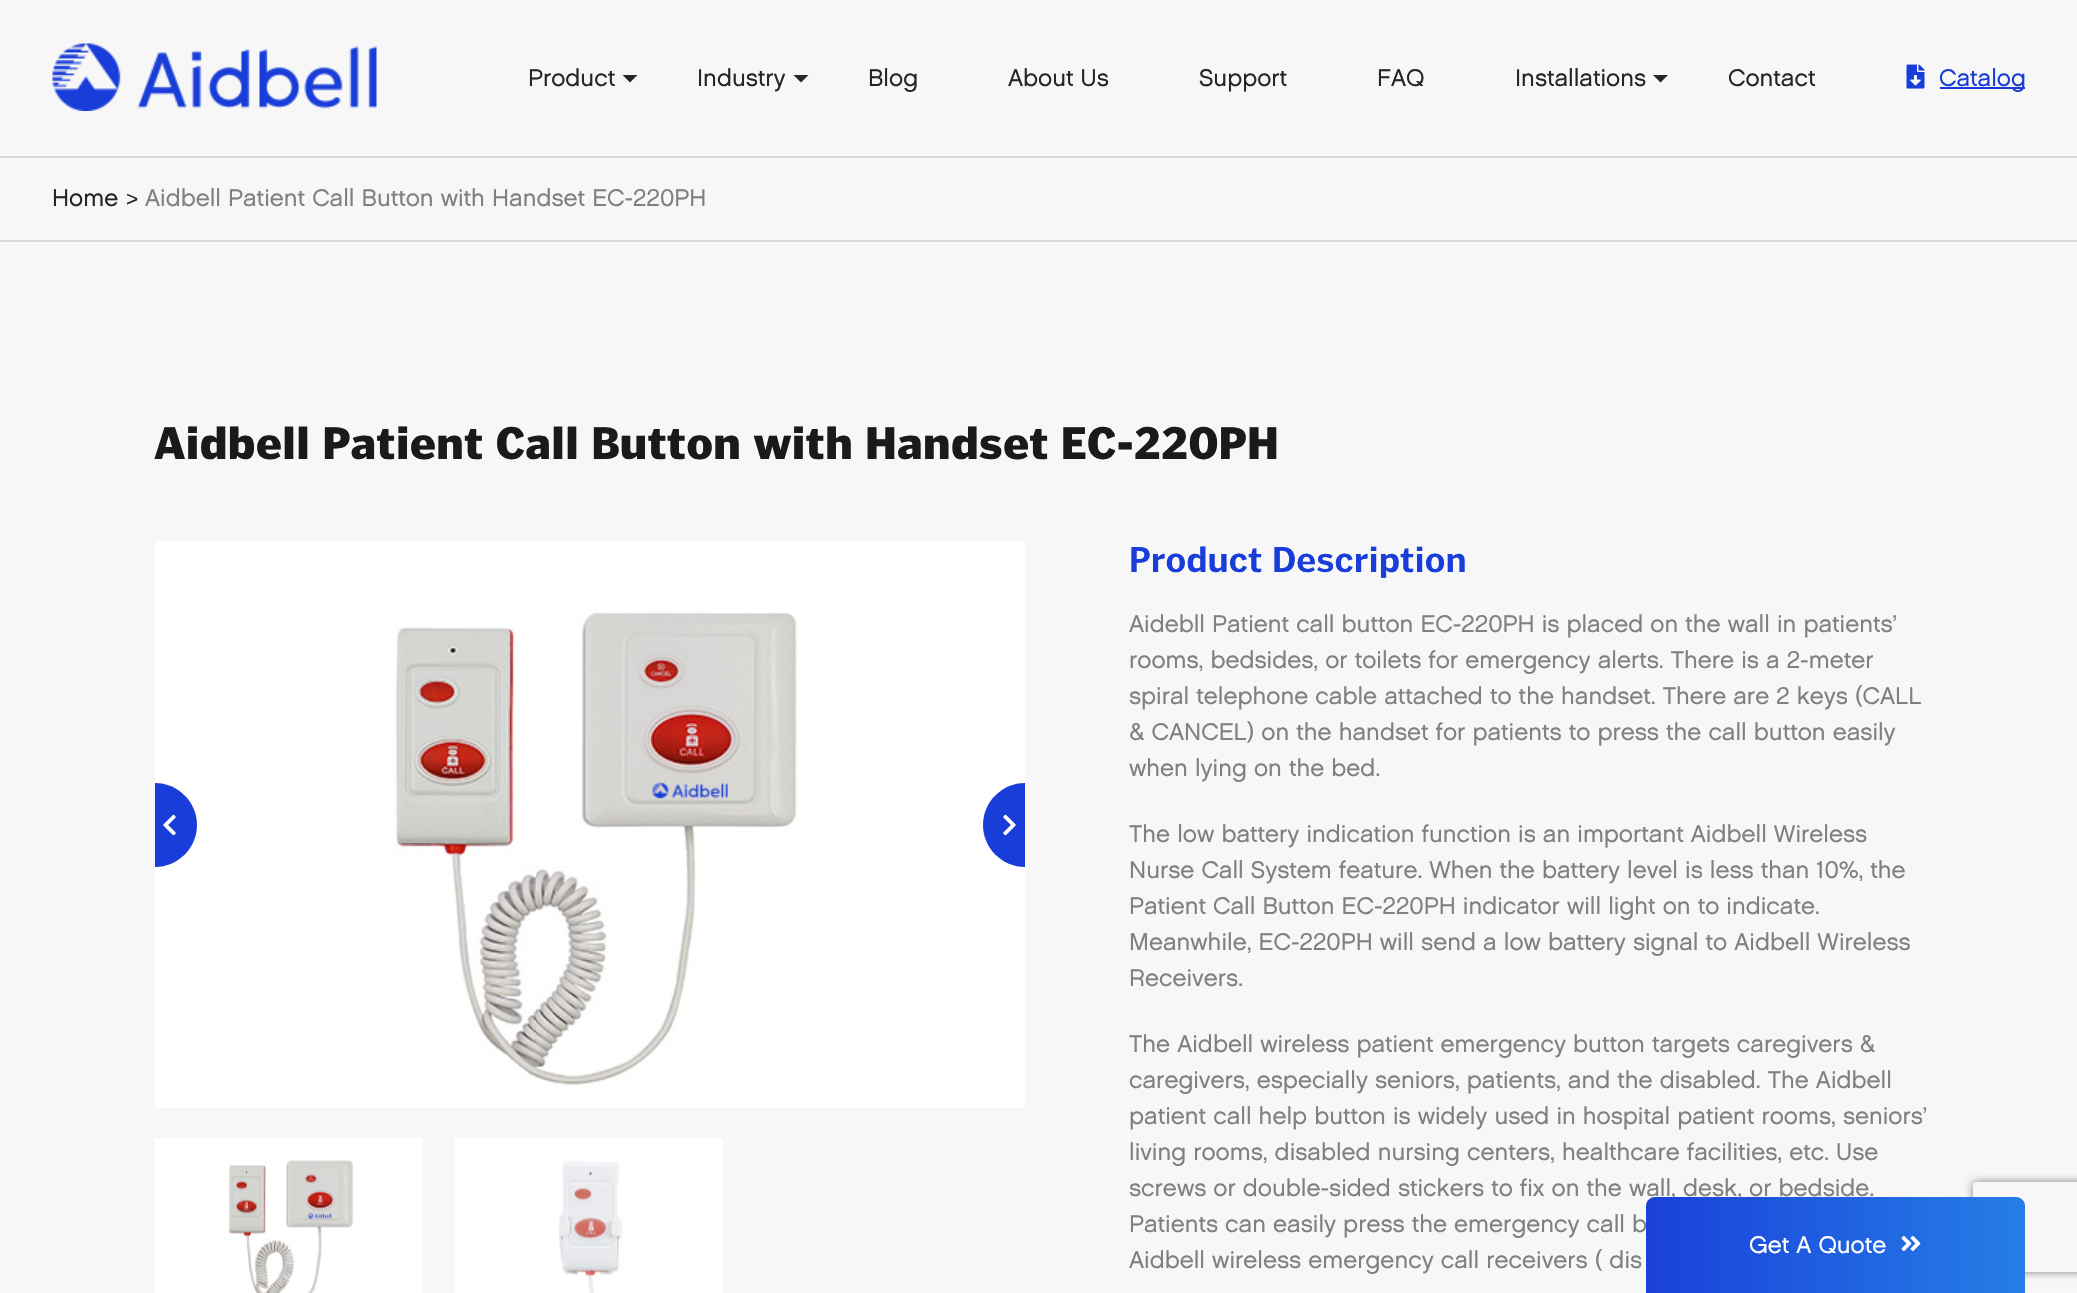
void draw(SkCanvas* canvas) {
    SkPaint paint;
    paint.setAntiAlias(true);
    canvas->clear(0xFFF7F7F7);
    canvas->drawImageRect(SkImages::DeferredFromEncodedData(SkData::MakeFromFileName("img1.png")), SkRect::MakeXYWH(52, 43, 325, 68), SkSamplingOptions());
    SkFont font1(fontMgr->matchFamilyStyle("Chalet", SkFontStyle(500, SkFontStyle::kNormal_Width, SkFontStyle::kUpright_Slant)), 24);
    font1.setSubpixel(true);
    paint.setColor(0xFF262626);
    canvas->drawString("Product", 528, 86, font1, paint);
    canvas->drawPath(SkPathBuilder().moveTo(622.5f, 75).lineTo(637.5f, 75).lineTo(630, 82.5f).close().detach(), paint);
    canvas->drawString("Industry", 697, 86, font1, paint);
    canvas->drawPath(SkPathBuilder().moveTo(793.5f, 75).lineTo(808.5f, 75).lineTo(801, 82.5f).close().detach(), paint);
    canvas->drawString("Blog", 868, 86, font1, paint);
    canvas->drawString("About Us", 1008, 86, font1, paint);
    canvas->drawString("Support", 1199, 86, font1, paint);
    canvas->drawString("FAQ", 1377, 86, font1, paint);
    canvas->drawString("Installations", 1515, 86, font1, paint);
    canvas->drawPath(SkPathBuilder().moveTo(1653, 75).lineTo(1668, 75).lineTo(1660.5f, 82.5f).close().detach(), paint);
    canvas->drawString("Contact", 1728, 86, font1, paint);
    canvas->drawImageRect(SkImages::DeferredFromEncodedData(SkData::MakeFromFileName("img2.png")), SkRect::MakeXYWH(1906, 64, 19, 25), SkSamplingOptions());
    paint.setColor(0xFF193DD8);
    canvas->drawRect(SkRect::MakeXYWH(1940, 87, 85, 2), paint);
    canvas->drawString("Catalog", 1939, 86, font1, paint);
    paint.setColor(0xFFD8D8D8);
    canvas->drawRect(SkRect::MakeXYWH(0, 156, 2077, 2), paint);
    canvas->drawRect(SkRect::MakeXYWH(0, 240, 2077, 2), paint);
    paint.setColor(0xFF262626);
    canvas->drawString("Home", 52, 206, font1, paint);
    SkFont font2(fontMgr->matchFamilyStyle("Liberation Sans", SkFontStyle::Normal()), 21);
    font2.setSubpixel(true);
    canvas->drawString(">", 126, 206, font2, paint);
    paint.setColor(0xFF808080);
    canvas->drawString("Aidbell Patient Call Button with Handset EC-220PH", 145, 206, font1, paint);
    SkFont font3(fontMgr->matchFamilyStyle("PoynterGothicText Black", SkFontStyle(900, SkFontStyle::kNormal_Width, SkFontStyle::kUpright_Slant)), 45);
    font3.setSubpixel(true);
    paint.setColor(0xFF1A1A1A);
    canvas->drawString("Aidbell Patient Call Button with Handset EC-220PH", 154, 459, font3, paint);
    canvas->drawImageRect(SkImages::DeferredFromEncodedData(SkData::MakeFromFileName("img3.png")), SkRect::MakeXYWH(155, 541, 870, 567), SkSamplingOptions());
    paint.setColor(0xFF193DD8);
    canvas->drawPath(SkPathBuilder().moveTo(155, 783).cubicTo(178, 783, 197, 802, 197, 825).cubicTo(197, 848, 178, 867, 155, 867).close().detach(), paint);
    canvas->drawImageRect(SkImages::DeferredFromEncodedData(SkData::MakeFromFileName("img4.png")), SkRect::MakeXYWH(163, 814, 13, 22), SkSamplingOptions());
    canvas->drawPath(SkPathBuilder().moveTo(1025, 783).lineTo(1025, 867).cubicTo(1002, 867, 983, 848, 983, 825).cubicTo(983, 802, 1002, 783, 1025, 783).close().detach(), paint);
    canvas->drawImageRect(SkImages::DeferredFromEncodedData(SkData::MakeFromFileName("img5.png")), SkRect::MakeXYWH(1003, 814, 13, 22), SkSamplingOptions());
    canvas->drawImageRect(SkImages::DeferredFromEncodedData(SkData::MakeFromFileName("img6.png")), SkRect::MakeXYWH(155, 1138, 268, 155), SkSamplingOptions());
    canvas->drawImageRect(SkImages::DeferredFromEncodedData(SkData::MakeFromFileName("img7.png")), SkRect::MakeXYWH(454, 1138, 269, 155), SkSamplingOptions());
    SkFont font4(fontMgr->matchFamilyStyle("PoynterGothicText", SkFontStyle::Bold()), 36);
    font4.setSubpixel(true);
    canvas->drawString("Product Description", 1129, 572, font4, paint);
    paint.setColor(0xFF808080);
    canvas->drawString("Aidebll Patient call button EC-220PH is placed on the wall in patients’", 1129, 632, font1, paint);
    canvas->drawString("rooms, bedsides, or toilets for emergency alerts. There is a 2-meter", 1129, 668, font1, paint);
    canvas->drawString("spiral telephone cable attached to the handset. There are 2 keys (CALL", 1129, 704, font1, paint);
    canvas->drawString("& CANCEL) on the handset for patients to press the call button easily", 1129, 740, font1, paint);
    canvas->drawString("when lying on the bed.", 1129, 776, font1, paint);
    canvas->drawString("The low battery indication function is an important Aidbell Wireless", 1129, 842, font1, paint);
    canvas->drawString("Nurse Call System feature. When the battery level is less than 10%, the", 1129, 878, font1, paint);
    canvas->drawString("Patient Call Button EC-220PH indicator will light on to indicate.", 1129, 914, font1, paint);
    canvas->drawString("Meanwhile, EC-220PH will send a low battery signal to Aidbell Wireless", 1129, 950, font1, paint);
    canvas->drawString("Receivers.", 1129, 986, font1, paint);
    canvas->drawString("The Aidbell wireless patient emergency button targets caregivers &", 1129, 1052, font1, paint);
    canvas->drawString("caregivers, especially seniors, patients, and the disabled. The Aidbell", 1129, 1088, font1, paint);
    canvas->drawString("patient call help button is widely used in hospital patient rooms, seniors’", 1129, 1124, font1, paint);
    canvas->drawString("living rooms, disabled nursing centers, healthcare facilities, etc. Use", 1129, 1160, font1, paint);
    canvas->drawString("screws or double-sided stickers to fix on the wall, desk, or bedside.", 1129, 1196, font1, paint);
    canvas->drawString("Patients can easily press the emergency call b", 1129, 1232, font1, paint);
    canvas->drawString("Aidbell wireless emergency call receivers ( dis", 1129, 1268, font1, paint);
    canvas->save();
    canvas->clipPath(SkPathBuilder(SkPathFillType::kEvenOdd).moveTo(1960, 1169).lineTo(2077, 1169).lineTo(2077, 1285).lineTo(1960, 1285).close().moveTo(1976, 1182).lineTo(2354, 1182).cubicTo(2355.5f, 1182, 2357, 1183.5f, 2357, 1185).lineTo(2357, 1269).cubicTo(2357, 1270.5f, 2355.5f, 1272, 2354, 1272).lineTo(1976, 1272).cubicTo(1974.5f, 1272, 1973, 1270.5f, 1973, 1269).lineTo(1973, 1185).cubicTo(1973, 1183.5f, 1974.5f, 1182, 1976, 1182).close().detach(), true);
    paint.setMaskFilter(SkMaskFilter::MakeBlur(kNormal_SkBlurStyle, 4));
    canvas->drawRoundRect(SkRect::MakeXYWH(1973, 1182, 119, 90), 3, 3, paint);
    paint.setMaskFilter(nullptr);
    canvas->restore();
    {
        const SkColor colors[] = {0xFF1A41D9, 0xFF267EE7};
        const float stops[] = {0, 1};
        const SkPoint ends[] = {{1646, 1245}, {2025, 1245}};
        paint.setShader(SkGradientShader::MakeLinear(ends, colors, stops, 2, SkTileMode::kClamp));
        paint.setAlpha(255);
    }
    canvas->drawPath(SkPathBuilder().moveTo(1655, 1197).lineTo(2016, 1197).cubicTo(2021, 1197, 2025, 1201, 2025, 1206).lineTo(2025, 1293).lineTo(1646, 1293).lineTo(1646, 1206).cubicTo(1646, 1201, 1650, 1197, 1655, 1197).close().detach(), paint);
    paint.setShader(nullptr);
    paint.setColor(0xFFFFFFFF);
    canvas->drawString("Get A Quote", 1749, 1253, font1, paint);
    canvas->drawImageRect(SkImages::DeferredFromEncodedData(SkData::MakeFromFileName("img8.png")), SkRect::MakeXYWH(1901, 1236, 20, 15), SkSamplingOptions());
}
